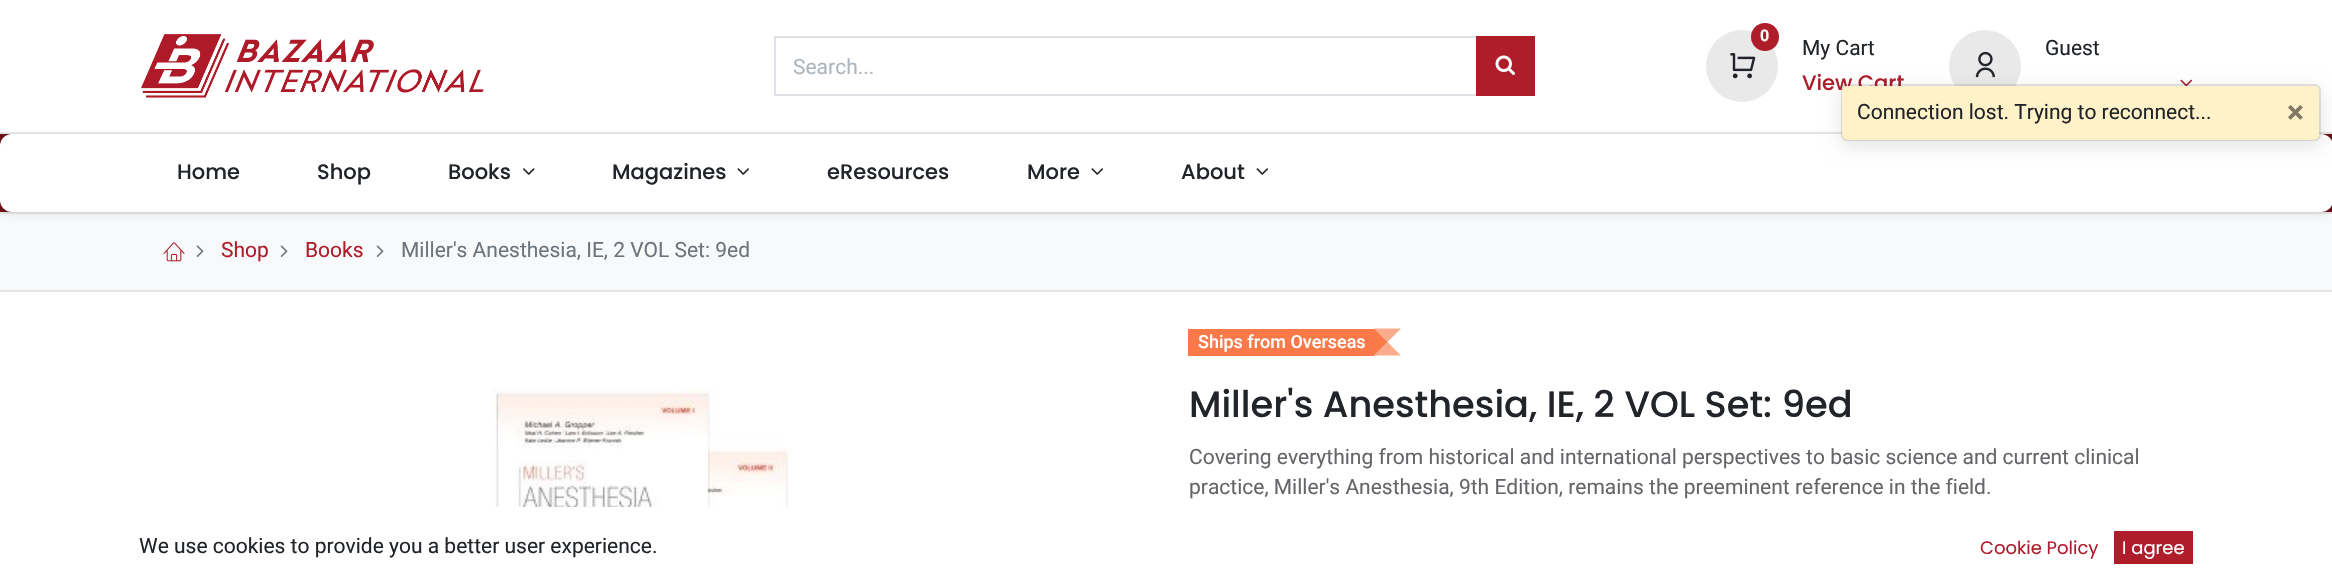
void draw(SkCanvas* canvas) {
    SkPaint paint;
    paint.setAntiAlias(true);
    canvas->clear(0xFF6D111A);
    paint.setColor(0xFFFFFFFF);
    canvas->drawRect(SkRect::MakeXYWH(0, 0, 2332, 132), paint);
    paint.setColor(0xFFE4E5E5);
    canvas->drawRect(SkRect::MakeXYWH(0, 132, 2332, 2), paint);
    canvas->drawImageRect(SkImages::DeferredFromEncodedData(SkData::MakeFromFileName("img1.png")), SkRect::MakeXYWH(141, 34, 343, 64), SkSamplingOptions());
    paint.setStyle(SkPaint::kStroke_Style);
    paint.setStrokeWidth(2);
    paint.setColor(0xFFDEE2E6);
    canvas->drawRect(SkRect::MakeXYWH(775, 37, 702, 58), paint);
    SkFont font1(fontMgr->matchFamilyStyle("Roboto", SkFontStyle::Normal()), 21);
    font1.setSubpixel(true);
    paint.setStyle(SkPaint::kFill_Style);
    paint.setColor(0xFFADB5BD);
    canvas->drawString("Search...", 793, 74, font1, paint);
    paint.setColor(0xFFAF1C2A);
    canvas->drawRect(SkRect::MakeXYWH(1476, 36, 59, 60), paint);
    canvas->drawImageRect(SkImages::DeferredFromEncodedData(SkData::MakeFromFileName("img2.png")), SkRect::MakeXYWH(1495, 55, 20, 20), SkSamplingOptions());
    paint.setColor(0xFFE9E9EA);
    canvas->drawCircle(1742, 66, 36, paint);
    paint.setColor(0xFFAF1C2A);
    canvas->drawCircle(1765, 37, 14, paint);
    SkFont font2(fontMgr->matchFamilyStyle("Roboto", SkFontStyle::Bold()), 16);
    font2.setSubpixel(true);
    paint.setColor(0xFFFFFFFF);
    canvas->drawString("0", 1760, 41, font2, paint);
    canvas->drawImageRect(SkImages::DeferredFromEncodedData(SkData::MakeFromFileName("img3.png")), SkRect::MakeXYWH(1730, 53, 26, 26), SkSamplingOptions());
    paint.setColor(0xFF212529);
    canvas->drawString("My Cart", 1802, 55, font1, paint);
    SkFont font3(fontMgr->matchFamilyStyle("Poppins", SkFontStyle(500, SkFontStyle::kNormal_Width, SkFontStyle::kUpright_Slant)), 21);
    font3.setSubpixel(true);
    paint.setColor(0xFFAF1C2A);
    canvas->drawString("View Cart", 1802, 90, font3, paint);
    paint.setColor(0xFFE9E9EA);
    canvas->drawCircle(1985, 66, 36, paint);
    canvas->drawImageRect(SkImages::DeferredFromEncodedData(SkData::MakeFromFileName("img4.png")), SkRect::MakeXYWH(1975, 51, 20, 27), SkSamplingOptions());
    paint.setColor(0xFF212529);
    canvas->drawString("Guest", 2045, 55, font1, paint);
    canvas->drawImageRect(SkImages::DeferredFromEncodedData(SkData::MakeFromFileName("img5.png")), SkRect::MakeXYWH(2180, 79, 13, 7), SkSamplingOptions());
    paint.setColor(0xFFF8F9FA);
    canvas->drawRect(SkRect::MakeXYWH(0, 214, 2332, 76), paint);
    paint.setColor(0xFFE5E5E5);
    canvas->drawRect(SkRect::MakeXYWH(0, 212, 2332, 2), paint);
    paint.setColor(0x12000000);
    paint.setMaskFilter(SkMaskFilter::MakeBlur(kNormal_SkBlurStyle, 3));
    canvas->drawRoundRect(SkRect::MakeXYWH(0, 137, 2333, 78), 12, 12, paint);
    paint.setMaskFilter(nullptr);
    paint.setColor(0xFFFFFFFF);
    canvas->drawRoundRect(SkRect::MakeXYWH(0, 134, 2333, 78), 12, 12, paint);
    paint.setColor(0xFF212529);
    canvas->drawString("Home", 177, 179, font3, paint);
    canvas->drawString("Shop", 317, 179, font3, paint);
    canvas->drawString("Books", 448, 179, font3, paint);
    canvas->drawImageRect(SkImages::DeferredFromEncodedData(SkData::MakeFromFileName("img6.png")), SkRect::MakeXYWH(523, 168, 12, 7), SkSamplingOptions());
    canvas->drawString("Magazines", 612, 179, font3, paint);
    canvas->drawImageRect(SkImages::DeferredFromEncodedData(SkData::MakeFromFileName("img7.png")), SkRect::MakeXYWH(737, 168, 12, 7), SkSamplingOptions());
    canvas->drawString("eResources", 827, 179, font3, paint);
    canvas->drawString("More", 1027, 179, font3, paint);
    canvas->drawImageRect(SkImages::DeferredFromEncodedData(SkData::MakeFromFileName("img7.png")), SkRect::MakeXYWH(1091, 168, 12, 7), SkSamplingOptions());
    canvas->drawString("About", 1181, 179, font3, paint);
    canvas->drawImageRect(SkImages::DeferredFromEncodedData(SkData::MakeFromFileName("img7.png")), SkRect::MakeXYWH(1256, 168, 12, 7), SkSamplingOptions());
    paint.setColor(0xFFFFFFFF);
    canvas->drawRect(SkRect::MakeXYWH(0, 292, 2332, 293), paint);
    paint.setColor(0xFFE5E5E5);
    canvas->drawRect(SkRect::MakeXYWH(0, 290, 2332, 2), paint);
    canvas->drawImageRect(SkImages::DeferredFromEncodedData(SkData::MakeFromFileName("img8.png")), SkRect::MakeXYWH(163, 242, 22, 20), SkSamplingOptions());
    canvas->drawImageRect(SkImages::DeferredFromEncodedData(SkData::MakeFromFileName("img9.png")), SkRect::MakeXYWH(196, 245, 8, 12), SkSamplingOptions());
    paint.setColor(0xFFAF1C2A);
    canvas->drawString("Shop", 221, 257, font1, paint);
    canvas->drawImageRect(SkImages::DeferredFromEncodedData(SkData::MakeFromFileName("img9.png")), SkRect::MakeXYWH(280, 245, 8, 12), SkSamplingOptions());
    canvas->drawString("Books", 305, 257, font1, paint);
    canvas->drawImageRect(SkImages::DeferredFromEncodedData(SkData::MakeFromFileName("img9.png")), SkRect::MakeXYWH(376, 245, 8, 12), SkSamplingOptions());
    paint.setColor(0xFF6C757D);
    canvas->drawString("Miller's Anesthesia, IE, 2 VOL Set: 9ed", 401, 257, font1, paint);
    canvas->drawImageRect(SkImages::DeferredFromEncodedData(SkData::MakeFromFileName("img10.png")), SkRect::MakeXYWH(492, 388, 300, 119), SkSamplingOptions());
    paint.setColor(0xFFF97949);
    canvas->drawRect(SkRect::MakeXYWH(1188, 329, 186, 27), paint);
    SkFont font4(fontMgr->matchFamilyStyle("Roboto", SkFontStyle(500, SkFontStyle::kNormal_Width, SkFontStyle::kUpright_Slant)), 18);
    font4.setSubpixel(true);
    paint.setColor(0xFFFFFFFF);
    canvas->drawString("Ships from Overseas", 1198, 348, font4, paint);
    paint.setColor(0xFFFBAC8D);
    canvas->drawPath(SkPathBuilder().moveTo(1374, 328.5f).lineTo(1401, 328.5f).lineTo(1387.5f, 342).close().moveTo(1401, 355.5f).lineTo(1374, 355.5f).lineTo(1387.5f, 342).close().detach(), paint);
    paint.setColor(0xCCF7581B);
    canvas->drawPath(SkPathBuilder().moveTo(1374, 355.5f).lineTo(1374, 328.5f).lineTo(1387.5f, 342).close().detach(), paint);
    SkFont font5(fontMgr->matchFamilyStyle("Poppins", SkFontStyle(500, SkFontStyle::kNormal_Width, SkFontStyle::kUpright_Slant)), 36.75f);
    font5.setSubpixel(true);
    paint.setColor(0xFF212529);
    canvas->drawString("Miller's Anesthesia, IE, 2 VOL Set: 9ed", 1189, 417, font5, paint);
    paint.setColor(0xFF646669);
    canvas->drawString("Covering everything from historical and international perspectives to basic science and current clinical", 1189, 464, font1, paint);
    canvas->drawString("practice, Miller's Anesthesia, 9th Edition, remains the preeminent reference in the field.", 1189, 494, font1, paint);
    paint.setColor(0xFF212529);
    canvas->drawString("We use cookies to provide you a better user experience.", 139, 553, font1, paint);
    SkFont font6(fontMgr->matchFamilyStyle("Poppins", SkFontStyle::Normal()), 18);
    font6.setSubpixel(true);
    paint.setColor(0xFFAF1C2A);
    canvas->drawString("Cookie Policy", 1980, 554, font6, paint);
    canvas->drawRect(SkRect::MakeXYWH(2114, 531, 79, 33), paint);
    paint.setColor(0xFFFFFFFF);
    canvas->drawString("I agree", 2122, 554, font6, paint);
    paint.setColor(0x1A000000);
    paint.setMaskFilter(SkMaskFilter::MakeBlur(kNormal_SkBlurStyle, 9));
    canvas->drawRoundRect(SkRect::MakeXYWH(1841, 90, 480, 57), 6, 6, paint);
    paint.setMaskFilter(nullptr);
    paint.setColor(0xFFFFC107);
    canvas->drawRoundRect(SkRect::MakeXYWH(1842, 86, 477, 54), 5, 5, paint);
    paint.setStyle(SkPaint::kStroke_Style);
    paint.setColor(0x1A000000);
    canvas->drawRoundRect(SkRect::MakeXYWH(1842, 85, 478, 55), 5, 5, paint);
    paint.setStyle(SkPaint::kFill_Style);
    paint.setColor(0xC7FFFFFF);
    canvas->drawRoundRect(SkRect::MakeXYWH(1842, 86, 477, 54), 5, 5, paint);
    paint.setColor(0xFF212529);
    canvas->drawString("Connection lost. Trying to reconnect...", 1857, 119, font1, paint);
    SkFont font7(fontMgr->matchFamilyStyle("Roboto", SkFontStyle::Bold()), 32);
    font7.setSubpixel(true);
    paint.setColor(0xFF807964);
    canvas->drawString("×", 2287, 123, font7, paint);
}
